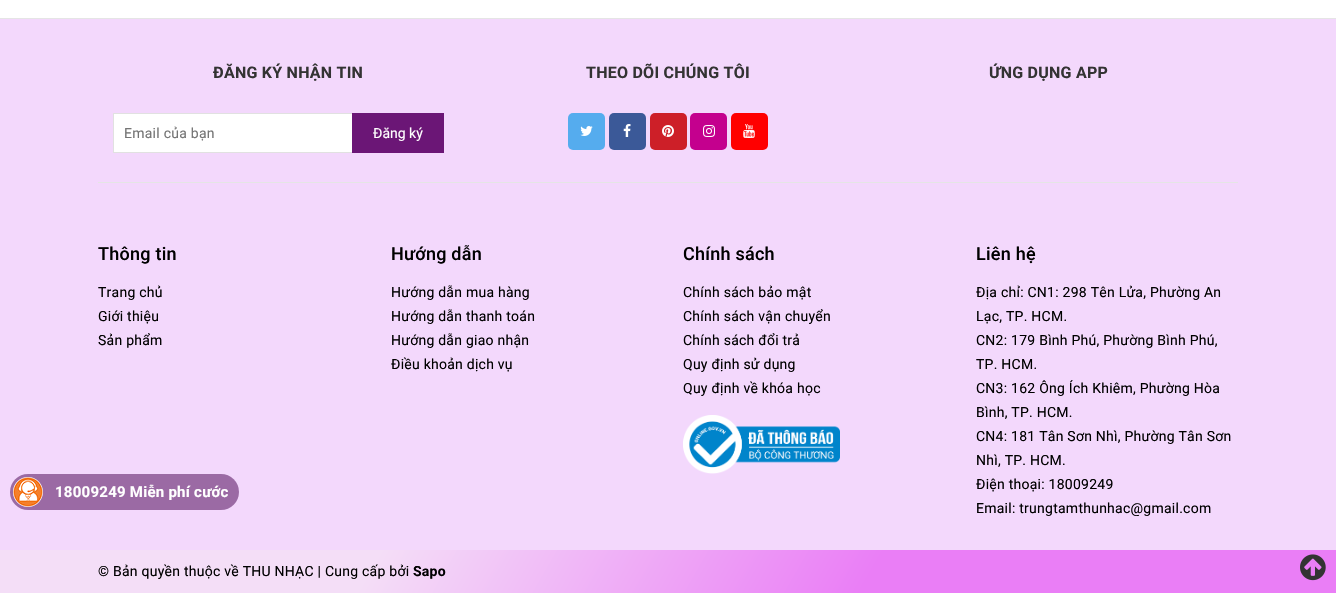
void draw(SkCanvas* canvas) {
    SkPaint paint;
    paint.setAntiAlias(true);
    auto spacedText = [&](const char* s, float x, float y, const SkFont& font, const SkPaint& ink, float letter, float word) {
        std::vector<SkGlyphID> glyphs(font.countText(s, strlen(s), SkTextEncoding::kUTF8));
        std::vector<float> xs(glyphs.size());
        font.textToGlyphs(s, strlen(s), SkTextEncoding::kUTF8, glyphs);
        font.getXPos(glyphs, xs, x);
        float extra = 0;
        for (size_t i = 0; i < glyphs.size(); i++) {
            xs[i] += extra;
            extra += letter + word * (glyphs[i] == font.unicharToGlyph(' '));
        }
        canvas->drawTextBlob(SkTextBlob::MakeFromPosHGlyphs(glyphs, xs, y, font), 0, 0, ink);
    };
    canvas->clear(0xFFFFFFFF);
    paint.setColor(0xFFF3D8FC);
    canvas->drawRect(SkRect::MakeXYWH(0, 19, 1336, 531), paint);
    paint.setColor(0xFFE5E5E5);
    canvas->drawRect(SkRect::MakeXYWH(0, 18, 1336, 1), paint);
    canvas->drawRect(SkRect::MakeXYWH(98, 182, 1140, 1), paint);
    SkFont font1(fontMgr->matchFamilyStyle("Roboto", SkFontStyle::Bold()), 16);
    font1.setSubpixel(true);
    paint.setColor(0xFF333333);
    spacedText("ĐĂNG KÝ NHẬN TIN", 213, 78, font1, paint, 0.25f, 0);
    paint.setColor(0xFFFFFFFF);
    canvas->drawRect(SkRect::MakeXYWH(113.5f, 113.5f, 239, 39), paint);
    paint.setStyle(SkPaint::kStroke_Style);
    paint.setStrokeWidth(1);
    paint.setColor(0xFFE1E1E1);
    canvas->drawRect(SkRect::MakeXYWH(113.5f, 113.5f, 239, 39), paint);
    SkFont font2(fontMgr->matchFamilyStyle("Roboto", SkFontStyle::Normal()), 14);
    font2.setSubpixel(true);
    paint.setStyle(SkPaint::kFill_Style);
    paint.setColor(0xFF757575);
    spacedText("Email của bạn", 124, 138, font2, paint, 0.25f, 0);
    paint.setColor(0xFF6B1676);
    canvas->drawRect(SkRect::MakeXYWH(352, 113, 92, 40), paint);
    paint.setColor(0xFFFFFFFF);
    canvas->drawString("Đăng ký", 373, 138, font2, paint);
    paint.setColor(0xFF333333);
    spacedText("THEO DÕI CHÚNG TÔI", 586, 78, font1, paint, 0.25f, 0);
    paint.setColor(0xFF55ACEE);
    canvas->drawRoundRect(SkRect::MakeXYWH(568, 113, 37, 37), 5, 5, paint);
    canvas->drawImageRect(SkImages::DeferredFromEncodedData(SkData::MakeFromFileName("img1.png")), SkRect::MakeXYWH(580, 126, 13, 10), SkSamplingOptions());
    paint.setColor(0xFF3B5998);
    canvas->drawRoundRect(SkRect::MakeXYWH(609, 113, 37, 37), 5, 5, paint);
    canvas->drawImageRect(SkImages::DeferredFromEncodedData(SkData::MakeFromFileName("img2.png")), SkRect::MakeXYWH(623, 124, 8, 13), SkSamplingOptions());
    paint.setColor(0xFFCD1F28);
    canvas->drawRoundRect(SkRect::MakeXYWH(650, 113, 37, 37), 5, 5, paint);
    canvas->drawImageRect(SkImages::DeferredFromEncodedData(SkData::MakeFromFileName("img3.png")), SkRect::MakeXYWH(662, 125, 12, 12), SkSamplingOptions());
    paint.setColor(0xFFC4008E);
    canvas->drawRoundRect(SkRect::MakeXYWH(690, 113, 37, 37), 5, 5, paint);
    canvas->drawImageRect(SkImages::DeferredFromEncodedData(SkData::MakeFromFileName("img4.png")), SkRect::MakeXYWH(703, 125, 12, 12), SkSamplingOptions());
    paint.setColor(0xFFFF0000);
    canvas->drawRoundRect(SkRect::MakeXYWH(731, 113, 37, 37), 5, 5, paint);
    canvas->drawImageRect(SkImages::DeferredFromEncodedData(SkData::MakeFromFileName("img5.png")), SkRect::MakeXYWH(743, 124, 12, 14), SkSamplingOptions());
    paint.setColor(0xFF333333);
    spacedText("ỨNG DỤNG APP", 989, 78, font1, paint, 0.25f, 0);
    SkFont font3(fontMgr->matchFamilyStyle("Roboto", SkFontStyle(500, SkFontStyle::kNormal_Width, SkFontStyle::kUpright_Slant)), 18);
    font3.setSubpixel(true);
    paint.setColor(0xFF000000);
    spacedText("Thông tin", 98, 260, font3, paint, 0.25f, 0);
    spacedText("Trang chủ", 98, 297, font2, paint, 0.25f, 0);
    spacedText("Giới thiệu", 98, 321, font2, paint, 0.25f, 0);
    spacedText("Sản phẩm", 98, 345, font2, paint, 0.25f, 0);
    spacedText("Hướng dẫn", 391, 260, font3, paint, 0.25f, 0);
    spacedText("Hướng dẫn mua hàng", 391, 297, font2, paint, 0.25f, 0);
    spacedText("Hướng dẫn thanh toán", 391, 321, font2, paint, 0.25f, 0);
    spacedText("Hướng dẫn giao nhận", 391, 345, font2, paint, 0.25f, 0);
    spacedText("Điều khoản dịch vụ", 391, 369, font2, paint, 0.25f, 0);
    spacedText("Chính sách", 683, 260, font3, paint, 0.25f, 0);
    spacedText("Chính sách bảo mật", 683, 297, font2, paint, 0.25f, 0);
    spacedText("Chính sách vận chuyển", 683, 321, font2, paint, 0.25f, 0);
    spacedText("Chính sách đổi trả", 683, 345, font2, paint, 0.25f, 0);
    spacedText("Quy định sử dụng", 683, 369, font2, paint, 0.25f, 0);
    spacedText("Quy định về khóa học", 683, 393, font2, paint, 0.25f, 0);
    canvas->drawImageRect(SkImages::DeferredFromEncodedData(SkData::MakeFromFileName("img6.png")), SkRect::MakeXYWH(683, 415, 157, 59), SkSamplingOptions());
    spacedText("Liên hệ", 976, 260, font3, paint, 0.25f, 0);
    spacedText("Địa chỉ: CN1: 298 Tên Lửa, Phường An", 976, 297, font2, paint, 0.25f, 0);
    spacedText("Lạc, TP. HCM.", 976, 321, font2, paint, 0.25f, 0);
    spacedText("CN2: 179 Bình Phú, Phường Bình Phú,", 976, 345, font2, paint, 0.25f, 0);
    spacedText("TP. HCM.", 976, 369, font2, paint, 0.25f, 0);
    spacedText("CN3: 162 Ông Ích Khiêm, Phường Hòa", 976, 393, font2, paint, 0.25f, 0);
    spacedText("Bình, TP. HCM.", 976, 417, font2, paint, 0.25f, 0);
    spacedText("CN4: 181 Tân Sơn Nhì, Phường Tân Sơn", 976, 441, font2, paint, 0.25f, 0);
    spacedText("Nhì, TP. HCM.", 976, 465, font2, paint, 0.25f, 0);
    spacedText("Điện thoại: 18009249", 976, 489, font2, paint, 0.25f, 0);
    spacedText("Email: trungtamthunhac@gmail.com", 976, 513, font2, paint, 0.25f, 0);
    {
        const SkColor colors[] = {0xFFF4DEF7, 0xFFEA7EF6};
        const float stops[] = {0.28f, 0.65f};
        const SkPoint ends[] = {{158, 277}, {1178, 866}};
        paint.setShader(SkGradientShader::MakeLinear(ends, colors, stops, 2, SkTileMode::kClamp));
        paint.setAlpha(255);
    }
    canvas->drawRect(SkRect::MakeXYWH(0, 550, 1336, 43), paint);
    paint.setShader(nullptr);
    paint.setColor(0xFF000000);
    spacedText("© Bản quyền thuộc về THU NHẠC | Cung cấp bởi", 98, 576, font2, paint, 0.25f, 0);
    SkFont font4(fontMgr->matchFamilyStyle("Roboto", SkFontStyle::Bold()), 14);
    font4.setSubpixel(true);
    spacedText("Sapo", 413, 576, font4, paint, 0.25f, 0);
    canvas->drawImageRect(SkImages::DeferredFromEncodedData(SkData::MakeFromFileName("img7.png")), SkRect::MakeXYWH(1300, 554, 26, 27), SkSamplingOptions());
    paint.setColor(0xFF9B6AA4);
    canvas->drawRoundRect(SkRect::MakeXYWH(10, 474, 229, 36), 18, 18, paint);
    canvas->drawImageRect(SkImages::DeferredFromEncodedData(SkData::MakeFromFileName("img8.png")), SkRect::MakeXYWH(13, 477, 30, 30), SkSamplingOptions());
    SkFont font5(fontMgr->matchFamilyStyle("Roboto", SkFontStyle::Bold()), 15);
    font5.setSubpixel(true);
    paint.setColor(0xFFFFFFFF);
    spacedText("18009249 Miễn phí cước", 55, 497, font5, paint, 0.25f, 0);
}
